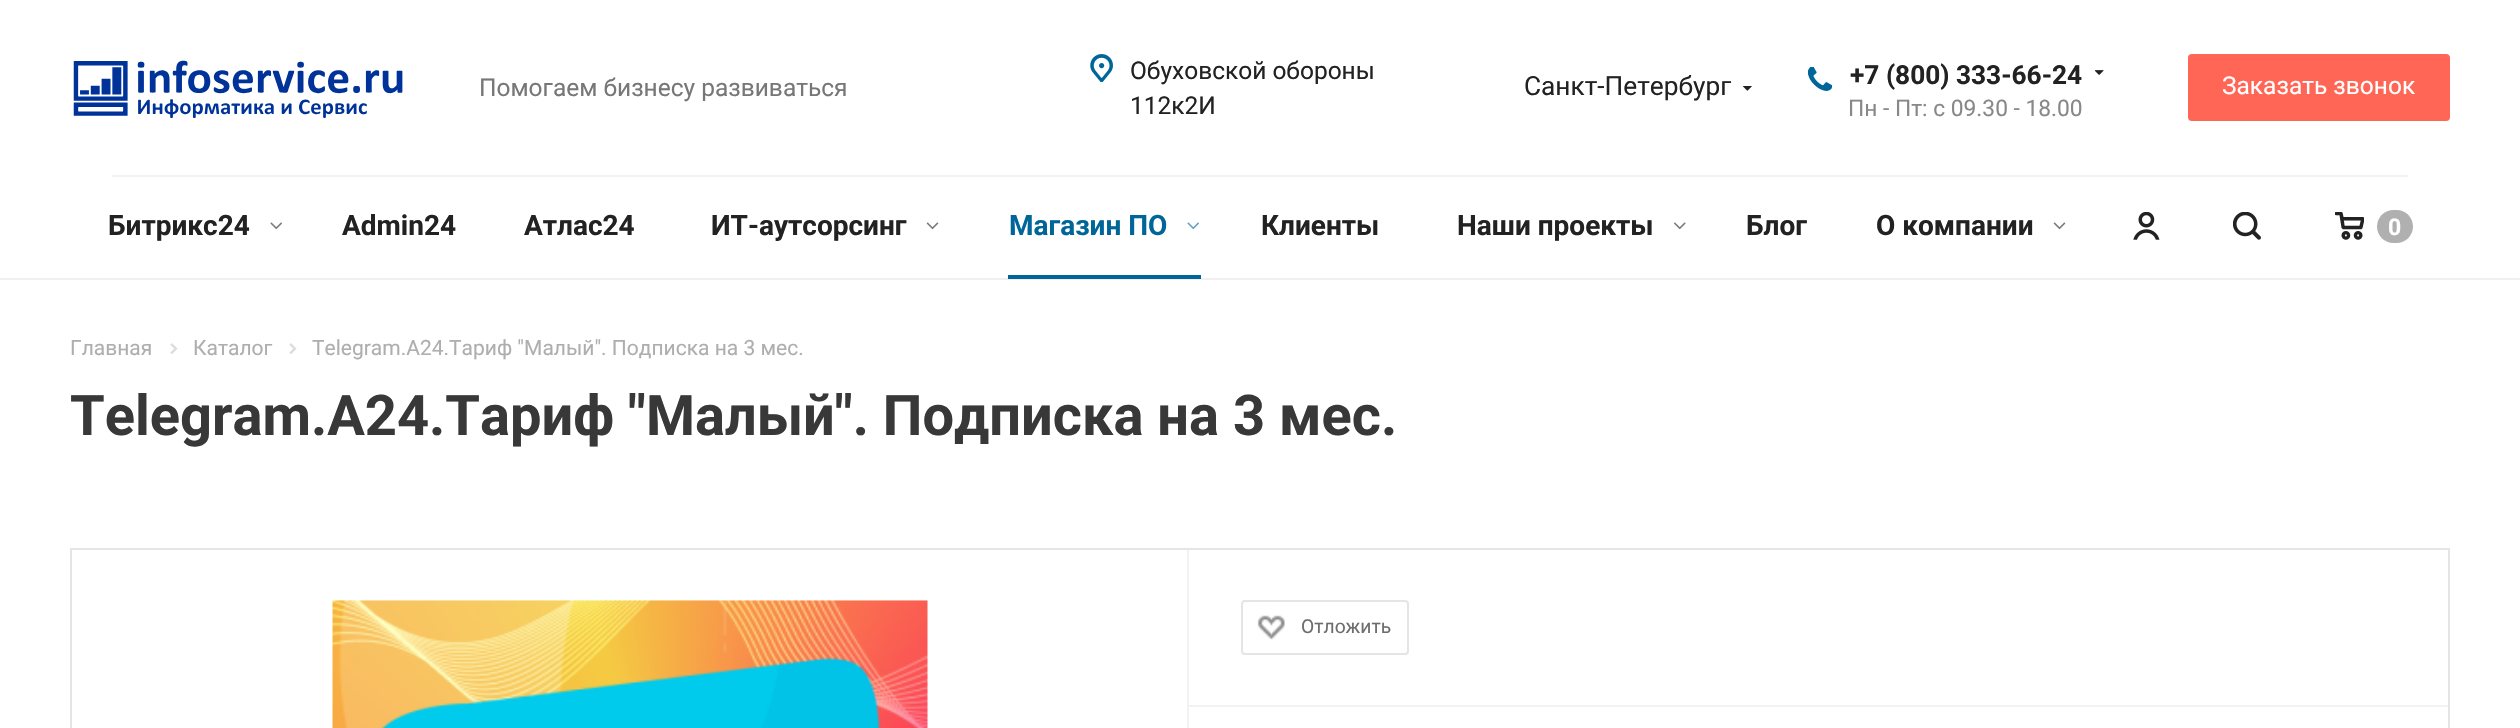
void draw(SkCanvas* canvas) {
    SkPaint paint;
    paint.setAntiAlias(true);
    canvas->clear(0xFFFFFFFF);
    canvas->drawImageRect(SkImages::DeferredFromEncodedData(SkData::MakeFromFileName("img1.png")), SkRect::MakeXYWH(73, 60, 330, 58), SkSamplingOptions());
    SkFont font1(fontMgr->matchFamilyStyle("Roboto", SkFontStyle::Normal()), 24.5f);
    font1.setSubpixel(true);
    paint.setColor(0xFF777777);
    canvas->drawString("Помогаем бизнесу развиваться", 479, 96, font1, paint);
    canvas->drawImageRect(SkImages::DeferredFromEncodedData(SkData::MakeFromFileName("img2.png")), SkRect::MakeXYWH(1090, 54, 23, 28), SkSamplingOptions());
    paint.setColor(0xFF222222);
    canvas->drawString("Обуховской обороны", 1130, 79, font1, paint);
    canvas->drawString("112к2И", 1130, 114, font1, paint);
    SkFont font2(fontMgr->matchFamilyStyle("Roboto", SkFontStyle::Normal()), 26.25f);
    font2.setSubpixel(true);
    canvas->drawString("Санкт-Петербург", 1524, 95, font2, paint);
    canvas->drawImageRect(SkImages::DeferredFromEncodedData(SkData::MakeFromFileName("img3.png")), SkRect::MakeXYWH(1743, 86, 9, 5), SkSamplingOptions());
    canvas->drawImageRect(SkImages::DeferredFromEncodedData(SkData::MakeFromFileName("img4.png")), SkRect::MakeXYWH(1808, 67, 24, 24), SkSamplingOptions());
    SkFont font3(fontMgr->matchFamilyStyle("Roboto", SkFontStyle::Bold()), 26.25f);
    font3.setSubpixel(true);
    canvas->drawString("+7 (800) 333-66-24", 1850, 84, font3, paint);
    canvas->drawImageRect(SkImages::DeferredFromEncodedData(SkData::MakeFromFileName("img5.png")), SkRect::MakeXYWH(2095, 70, 9, 5), SkSamplingOptions());
    SkFont font4(fontMgr->matchFamilyStyle("Roboto", SkFontStyle::Normal()), 22.75f);
    font4.setSubpixel(true);
    paint.setColor(0xFF888888);
    canvas->drawString("Пн - Пт: с 09.30 - 18.00", 1848, 116, font4, paint);
    paint.setColor(0xFFFF6655);
    canvas->drawRoundRect(SkRect::MakeXYWH(2189, 55, 260, 65), 3, 3, paint);
    paint.setStyle(SkPaint::kStroke_Style);
    paint.setStrokeWidth(2);
    canvas->drawRoundRect(SkRect::MakeXYWH(2189, 55, 260, 65), 3, 3, paint);
    paint.setStyle(SkPaint::kFill_Style);
    paint.setColor(0xFFFFFFFF);
    canvas->drawString("Заказать звонок", 2222, 94, font1, paint);
    paint.setColor(0xFFF2F2F2);
    canvas->drawRect(SkRect::MakeXYWH(112, 175, 2296, 2), paint);
    SkFont font5(fontMgr->matchFamilyStyle("Roboto", SkFontStyle::Bold()), 28);
    font5.setSubpixel(true);
    paint.setColor(0xFF222222);
    canvas->drawString("Битрикс24", 108, 235, font5, paint);
    canvas->drawImageRect(SkImages::DeferredFromEncodedData(SkData::MakeFromFileName("img6.png")), SkRect::MakeXYWH(270, 222, 12, 8), SkSamplingOptions());
    canvas->drawString("Admin24", 342, 235, font5, paint);
    canvas->drawString("Атлас24", 524, 235, font5, paint);
    canvas->drawString("ИТ-аутсорсинг", 711, 235, font5, paint);
    canvas->drawImageRect(SkImages::DeferredFromEncodedData(SkData::MakeFromFileName("img7.png")), SkRect::MakeXYWH(926, 222, 13, 8), SkSamplingOptions());
    paint.setColor(0xFF006699);
    canvas->drawString("Магазин ПО", 1009, 235, font5, paint);
    canvas->drawImageRect(SkImages::DeferredFromEncodedData(SkData::MakeFromFileName("img8.png")), SkRect::MakeXYWH(1187, 222, 12, 8), SkSamplingOptions());
    paint.setColor(0xFFF0F0F0);
    canvas->drawRect(SkRect::MakeXYWH(0, 278, 2520, 2), paint);
    paint.setColor(0xFF006699);
    canvas->drawRect(SkRect::MakeXYWH(1008, 275, 193, 4), paint);
    paint.setColor(0xFF222222);
    canvas->drawString("Клиенты", 1261, 235, font5, paint);
    canvas->drawString("Наши проекты", 1457, 235, font5, paint);
    canvas->drawImageRect(SkImages::DeferredFromEncodedData(SkData::MakeFromFileName("img9.png")), SkRect::MakeXYWH(1674, 222, 12, 8), SkSamplingOptions());
    canvas->drawString("Блог", 1746, 235, font5, paint);
    canvas->drawString("О компании", 1876, 235, font5, paint);
    canvas->drawImageRect(SkImages::DeferredFromEncodedData(SkData::MakeFromFileName("img7.png")), SkRect::MakeXYWH(2053, 222, 13, 8), SkSamplingOptions());
    canvas->drawImageRect(SkImages::DeferredFromEncodedData(SkData::MakeFromFileName("img10.png")), SkRect::MakeXYWH(2133, 212, 27, 28), SkSamplingOptions());
    canvas->drawImageRect(SkImages::DeferredFromEncodedData(SkData::MakeFromFileName("img11.png")), SkRect::MakeXYWH(2233, 212, 28, 28), SkSamplingOptions());
    canvas->drawImageRect(SkImages::DeferredFromEncodedData(SkData::MakeFromFileName("img12.png")), SkRect::MakeXYWH(2335, 212, 29, 28), SkSamplingOptions());
    paint.setColor(0xFFB0B0B0);
    canvas->drawRoundRect(SkRect::MakeXYWH(2377, 210, 36, 33), 16.5f, 16.5f, paint);
    SkFont font6(fontMgr->matchFamilyStyle("Roboto", SkFontStyle::Bold()), 23);
    font6.setSubpixel(true);
    paint.setColor(0xFFFFFFFF);
    canvas->drawString("0", 2388, 235, font6, paint);
    SkFont font7(fontMgr->matchFamilyStyle("Roboto", SkFontStyle::Normal()), 21);
    font7.setSubpixel(true);
    paint.setColor(0xFFAEAEAE);
    canvas->drawString("Главная", 70, 355, font7, paint);
    canvas->drawImageRect(SkImages::DeferredFromEncodedData(SkData::MakeFromFileName("img13.png")), SkRect::MakeXYWH(170, 343, 8, 11), SkSamplingOptions());
    canvas->drawString("Каталог", 193, 355, font7, paint);
    canvas->drawImageRect(SkImages::DeferredFromEncodedData(SkData::MakeFromFileName("img13.png")), SkRect::MakeXYWH(289, 343, 8, 11), SkSamplingOptions());
    canvas->drawString("Telegram.A24.Тариф \"Малый\". Подписка на 3 мес.", 312, 355, font7, paint);
    SkFont font8(fontMgr->matchFamilyStyle("Roboto", SkFontStyle::Bold()), 56);
    font8.setSubpixel(true);
    paint.setColor(0xFF383838);
    canvas->drawString("Telegram.A24.Тариф \"Малый\". Подписка на 3 мес.", 70, 435, font8, paint);
    paint.setStyle(SkPaint::kStroke_Style);
    paint.setColor(0xFFE5E5E5);
    canvas->drawRect(SkRect::MakeXYWH(71, 549, 2378, 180), paint);
    canvas->drawImageRect(SkImages::DeferredFromEncodedData(SkData::MakeFromFileName("img14.png")), SkRect::MakeXYWH(332, 600, 596, 128), SkSamplingOptions());
    paint.setStyle(SkPaint::kFill_Style);
    paint.setColor(0xFFF2F2F2);
    canvas->drawRect(SkRect::MakeXYWH(1187, 550, 2, 178), paint);
    canvas->drawRect(SkRect::MakeXYWH(1188, 705, 1260, 2), paint);
    paint.setStyle(SkPaint::kStroke_Style);
    paint.setColor(0xFFE5E5E5);
    canvas->drawRoundRect(SkRect::MakeXYWH(1242, 601, 166, 53), 3, 3, paint);
    canvas->drawImageRect(SkImages::DeferredFromEncodedData(SkData::MakeFromFileName("img15.png")), SkRect::MakeXYWH(1257, 615, 28, 25), SkSamplingOptions());
    SkFont font9(fontMgr->matchFamilyStyle("Roboto", SkFontStyle::Normal()), 19.25f);
    font9.setSubpixel(true);
    paint.setStyle(SkPaint::kFill_Style);
    paint.setColor(0xFF6D6D6D);
    canvas->drawString("Отложить", 1301, 633, font9, paint);
}
